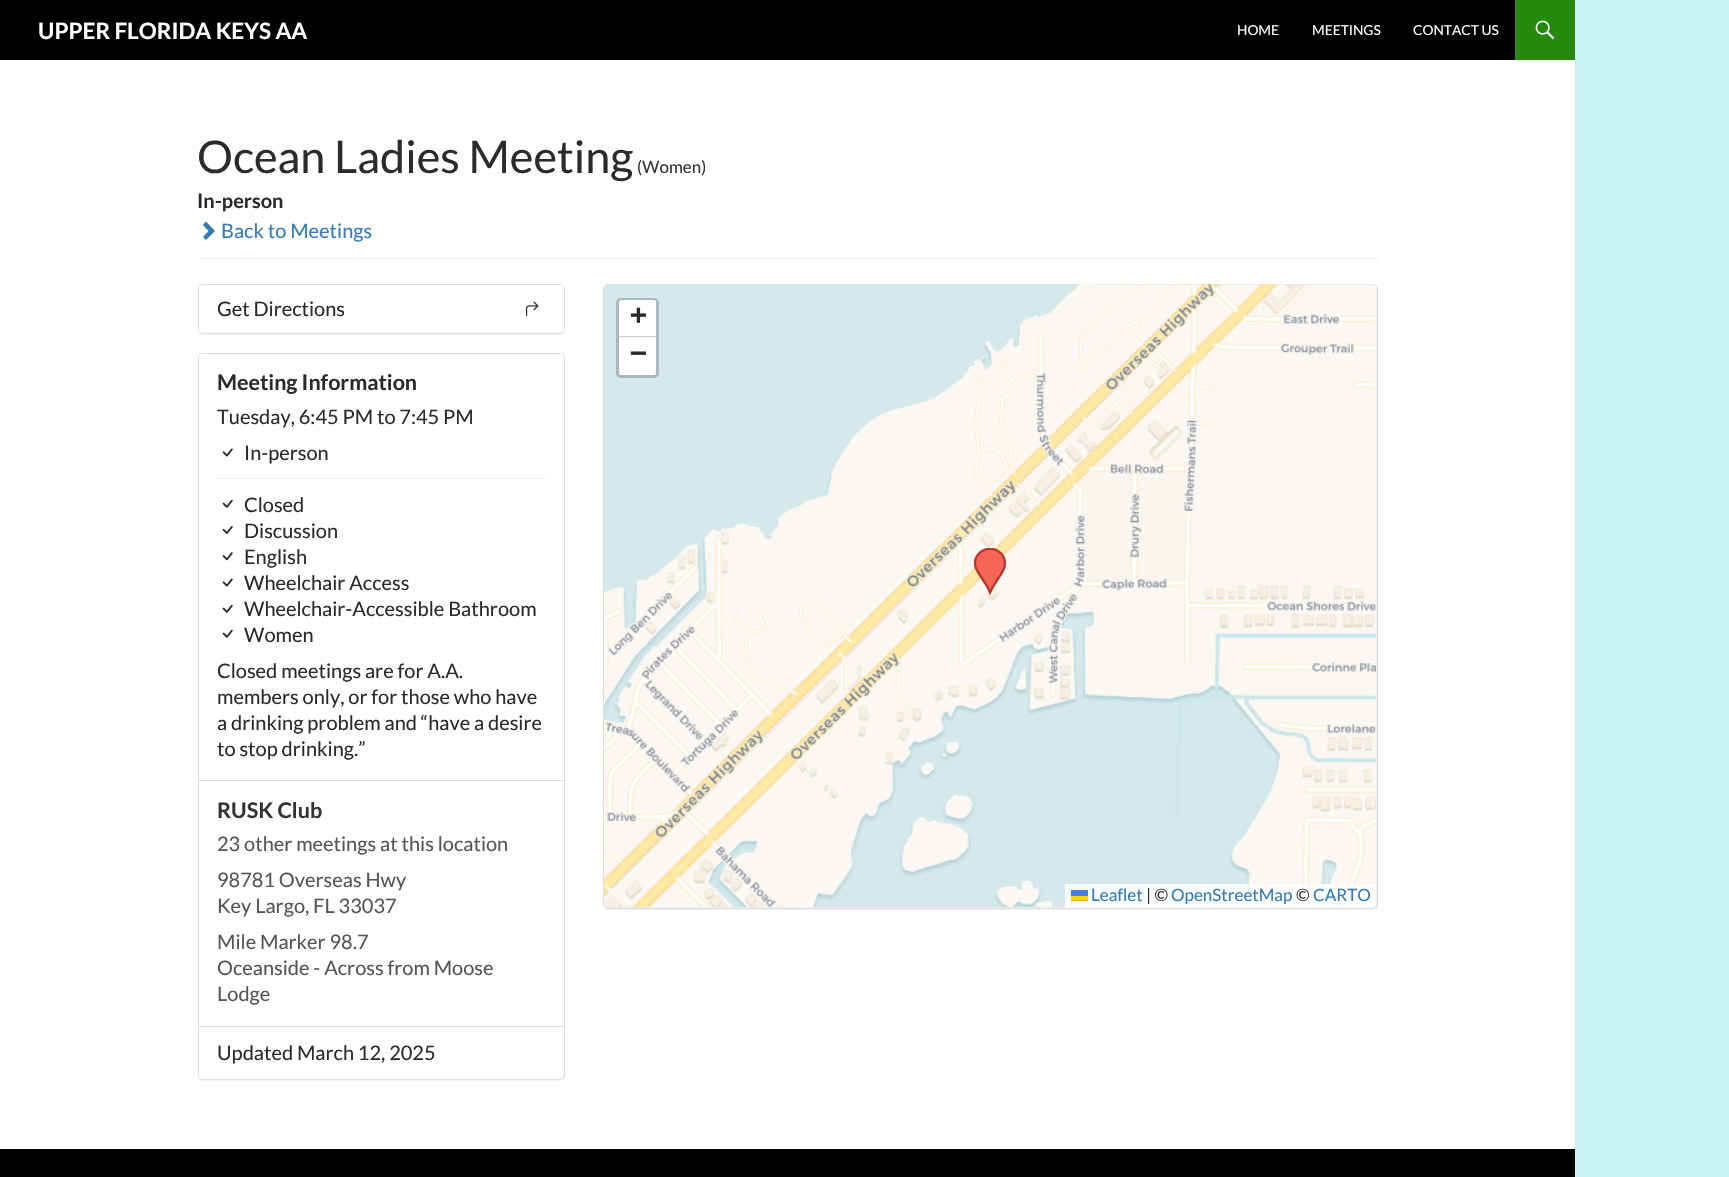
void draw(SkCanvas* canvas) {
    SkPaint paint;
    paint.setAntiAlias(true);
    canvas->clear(0xFFCAF2F7);
    paint.setColor(0xFFFFFFFF);
    canvas->drawRect(SkRect::MakeXYWH(0, 60, 1575, 1089), paint);
    paint.setColor(0xFF000000);
    canvas->drawRect(SkRect::MakeXYWH(0, 0, 1515, 60), paint);
    SkFont font1(fontMgr->matchFamilyStyle("Lato", SkFontStyle::Bold()), 22.5f);
    font1.setSubpixel(true);
    paint.setColor(0xFFFFFFFF);
    canvas->drawString("UPPER FLORIDA KEYS AA", 38, 39, font1, paint);
    SkFont font2(fontMgr->matchFamilyStyle("Lato", SkFontStyle::Normal()), 13.75f);
    font2.setSubpixel(true);
    canvas->drawString("HOME", 1237, 35, font2, paint);
    canvas->drawString("MEETINGS", 1312, 35, font2, paint);
    canvas->drawString("CONTACT US", 1413, 35, font2, paint);
    paint.setColor(0xFF24890D);
    canvas->drawRect(SkRect::MakeXYWH(1515, 0, 60, 60), paint);
    canvas->drawImageRect(SkImages::DeferredFromEncodedData(SkData::MakeFromFileName("img1.png")), SkRect::MakeXYWH(1535, 20, 20, 20), SkSamplingOptions());
    paint.setColor(0xFFEEEEEE);
    canvas->drawRect(SkRect::MakeXYWH(198, 258, 1181, 1), paint);
    SkFont font3(fontMgr->matchFamilyStyle("Lato", SkFontStyle::Normal()), 45);
    font3.setSubpixel(true);
    paint.setColor(0xFF2B2B2B);
    canvas->drawString("Ocean Ladies Meeting", 197, 173, font3, paint);
    SkFont font4(fontMgr->matchFamilyStyle("Lato", SkFontStyle::Normal()), 17);
    font4.setSubpixel(true);
    paint.setColor(0xFF333333);
    canvas->drawString("(Women)", 637, 173, font4, paint);
    SkFont font5(fontMgr->matchFamilyStyle("Lato", SkFontStyle::Bold()), 20);
    font5.setSubpixel(true);
    paint.setColor(0xFF2B2B2B);
    canvas->drawString("In-person", 197, 208, font5, paint);
    paint.setColor(0xFF337AB7);
    canvas->drawPath(SkPathBuilder().moveTo(215, 231).lineTo(206, 240).lineTo(203, 237).lineTo(208.5f, 231).lineTo(203, 225).lineTo(206, 221.5f).close().detach(), paint);
    SkFont font6(fontMgr->matchFamilyStyle("Lato", SkFontStyle::Normal()), 20);
    font6.setSubpixel(true);
    canvas->drawString("Back to Meetings", 221, 238, font6, paint);
    paint.setColor(0x0D000000);
    paint.setMaskFilter(SkMaskFilter::MakeBlur(kNormal_SkBlurStyle, 0.5f));
    canvas->drawRoundRect(SkRect::MakeXYWH(198, 285, 367, 50), 5, 5, paint);
    paint.setMaskFilter(nullptr);
    paint.setStyle(SkPaint::kStroke_Style);
    paint.setStrokeWidth(1);
    paint.setColor(0xFFDDDDDD);
    canvas->drawRoundRect(SkRect::MakeXYWH(198.5f, 284.5f, 366, 49), 4.5f, 4.5f, paint);
    paint.setStyle(SkPaint::kFill_Style);
    paint.setColor(0xFFFFFFFF);
    canvas->drawRoundRect(SkRect::MakeXYWH(199, 285, 365, 48), 4, 4, paint);
    paint.setColor(0xFF2B2B2B);
    canvas->drawString("Get Directions", 217, 316, font6, paint);
    canvas->drawImageRect(SkImages::DeferredFromEncodedData(SkData::MakeFromFileName("img2.png")), SkRect::MakeXYWH(525, 301, 14, 15), SkSamplingOptions());
    paint.setColor(0x0D000000);
    paint.setMaskFilter(SkMaskFilter::MakeBlur(kNormal_SkBlurStyle, 0.5f));
    canvas->drawRoundRect(SkRect::MakeXYWH(198, 354, 367, 727), 5, 5, paint);
    paint.setMaskFilter(nullptr);
    paint.setColor(0xFFFFFFFF);
    canvas->drawRoundRect(SkRect::MakeXYWH(198.5f, 353.5f, 366, 726), 4.5f, 4.5f, paint);
    paint.setStyle(SkPaint::kStroke_Style);
    paint.setColor(0xFFDDDDDD);
    canvas->drawRoundRect(SkRect::MakeXYWH(198.5f, 353.5f, 366, 726), 4.5f, 4.5f, paint);
    paint.setStyle(SkPaint::kFill_Style);
    paint.setColor(0xFFFFFFFF);
    canvas->drawPath(SkPathBuilder().moveTo(203, 354).lineTo(560, 354).cubicTo(562, 354, 564, 356, 564, 358).lineTo(564, 781).lineTo(199, 781).lineTo(199, 358).cubicTo(199, 356, 201, 354, 203, 354).close().detach(), paint);
    paint.setColor(0xFFDDDDDD);
    canvas->drawRect(SkRect::MakeXYWH(199, 780, 365, 1), paint);
    SkFont font7(fontMgr->matchFamilyStyle("Lato", SkFontStyle::Bold()), 21.5f);
    font7.setSubpixel(true);
    paint.setColor(0xFF2B2B2B);
    canvas->drawString("Meeting Information", 217, 390, font7, paint);
    canvas->drawString("Tuesday, 6:45 PM to 7:45 PM", 217, 424, font6, paint);
    canvas->drawImageRect(SkImages::DeferredFromEncodedData(SkData::MakeFromFileName("img3.png")), SkRect::MakeXYWH(222, 448, 11, 9), SkSamplingOptions());
    canvas->drawString("In-person", 244, 460, font6, paint);
    paint.setColor(0xFFEEEEEE);
    canvas->drawRect(SkRect::MakeXYWH(218, 478, 327, 1), paint);
    canvas->drawImageRect(SkImages::DeferredFromEncodedData(SkData::MakeFromFileName("img4.png")), SkRect::MakeXYWH(222, 499, 11, 9), SkSamplingOptions());
    paint.setColor(0xFF2B2B2B);
    canvas->drawString("Closed", 244, 512, font6, paint);
    canvas->drawImageRect(SkImages::DeferredFromEncodedData(SkData::MakeFromFileName("img5.png")), SkRect::MakeXYWH(222, 526, 11, 8), SkSamplingOptions());
    canvas->drawString("Discussion", 244, 538, font6, paint);
    canvas->drawImageRect(SkImages::DeferredFromEncodedData(SkData::MakeFromFileName("img6.png")), SkRect::MakeXYWH(222, 552, 11, 9), SkSamplingOptions());
    canvas->drawString("English", 244, 564, font6, paint);
    canvas->drawImageRect(SkImages::DeferredFromEncodedData(SkData::MakeFromFileName("img3.png")), SkRect::MakeXYWH(222, 578, 11, 9), SkSamplingOptions());
    canvas->drawString("Wheelchair Access", 244, 590, font6, paint);
    canvas->drawImageRect(SkImages::DeferredFromEncodedData(SkData::MakeFromFileName("img4.png")), SkRect::MakeXYWH(222, 604, 11, 9), SkSamplingOptions());
    canvas->drawString("Wheelchair-Accessible Bathroom", 244, 616, font6, paint);
    canvas->drawImageRect(SkImages::DeferredFromEncodedData(SkData::MakeFromFileName("img4.png")), SkRect::MakeXYWH(222, 629, 11, 9), SkSamplingOptions());
    canvas->drawString("Women", 244, 642, font6, paint);
    canvas->drawString("Closed meetings are for A.A.", 217, 678, font6, paint);
    canvas->drawString("members only, or for those who have", 217, 704, font6, paint);
    canvas->drawString("a drinking problem and “have a desire", 217, 730, font6, paint);
    canvas->drawString("to stop drinking.”", 217, 756, font6, paint);
    paint.setColor(0xFF333333);
    canvas->drawString("RUSK Club", 217, 818, font7, paint);
    paint.setColor(0xFF555555);
    canvas->drawString("23 other meetings at this location", 217, 851, font6, paint);
    canvas->drawString("98781 Overseas Hwy", 217, 887, font6, paint);
    canvas->drawString("Key Largo, FL 33037", 217, 913, font6, paint);
    canvas->drawString("Mile Marker 98.7", 217, 949, font6, paint);
    canvas->drawString("Oceanside - Across from Moose", 217, 975, font6, paint);
    canvas->drawString("Lodge", 217, 1001, font6, paint);
    paint.setColor(0xFFFFFFFF);
    canvas->drawPath(SkPathBuilder().moveTo(199, 1026).lineTo(564, 1026).lineTo(564, 1075).cubicTo(564, 1077, 562, 1079, 560, 1079).lineTo(203, 1079).cubicTo(201, 1079, 199, 1077, 199, 1075).close().detach(), paint);
    paint.setColor(0xFFDDDDDD);
    canvas->drawRect(SkRect::MakeXYWH(199, 1026, 365, 1), paint);
    paint.setColor(0xFF2B2B2B);
    canvas->drawString("Updated March 12, 2025", 217, 1060, font6, paint);
    paint.setColor(0x0D000000);
    paint.setMaskFilter(SkMaskFilter::MakeBlur(kNormal_SkBlurStyle, 0.5f));
    canvas->drawRoundRect(SkRect::MakeXYWH(603, 285, 775, 625), 5, 5, paint);
    paint.setMaskFilter(nullptr);
    paint.setColor(0xFFEEEEEE);
    canvas->drawRoundRect(SkRect::MakeXYWH(603.5f, 284.5f, 774, 624), 4.5f, 4.5f, paint);
    paint.setStyle(SkPaint::kStroke_Style);
    paint.setColor(0xFFDDDDDD);
    canvas->drawRoundRect(SkRect::MakeXYWH(603.5f, 284.5f, 774, 624), 4.5f, 4.5f, paint);
    canvas->drawImageRect(SkImages::DeferredFromEncodedData(SkData::MakeFromFileName("img8.png")), SkRect::MakeXYWH(776, 284, 321, 307), SkSamplingOptions());
    canvas->drawImageRect(SkImages::DeferredFromEncodedData(SkData::MakeFromFileName("img9.png")), SkRect::MakeXYWH(1096, 284, 280, 307), SkSamplingOptions());
    canvas->drawImageRect(SkImages::DeferredFromEncodedData(SkData::MakeFromFileName("img11.png")), SkRect::MakeXYWH(776, 590, 321, 317), SkSamplingOptions());
    canvas->drawImageRect(SkImages::DeferredFromEncodedData(SkData::MakeFromFileName("img7.png")), SkRect::MakeXYWH(604, 284, 173, 307), SkSamplingOptions());
    canvas->drawImageRect(SkImages::DeferredFromEncodedData(SkData::MakeFromFileName("img10.png")), SkRect::MakeXYWH(604, 590, 173, 317), SkSamplingOptions());
    canvas->drawImageRect(SkImages::DeferredFromEncodedData(SkData::MakeFromFileName("img12.png")), SkRect::MakeXYWH(1096, 590, 280, 317), SkSamplingOptions());
    canvas->drawImageRect(SkImages::DeferredFromEncodedData(SkData::MakeFromFileName("img13.png")), SkRect::MakeXYWH(974, 548, 32, 47), SkSamplingOptions());
    paint.setStrokeWidth(3);
    paint.setColor(0xFFAABABC);
    canvas->drawRoundRect(SkRect::MakeXYWH(617.5f, 299.5f, 40, 77), 3.5f, 3.5f, paint);
    paint.setStyle(SkPaint::kFill_Style);
    paint.setColor(0xFFFFFFFF);
    canvas->drawPath(SkPathBuilder().moveTo(621.5f, 300).lineTo(653.5f, 300).cubicTo(655, 300, 656, 301, 656, 302.5f).lineTo(656, 338).lineTo(619, 338).lineTo(619, 302.5f).cubicTo(619, 301, 620, 300, 621.5f, 300).close().detach(), paint);
    paint.setColor(0xFFCCCCCC);
    canvas->drawRect(SkRect::MakeXYWH(619, 336, 37, 1), paint);
    SkFont font8(fontMgr->matchFamilyStyle("DejaVu Sans Mono", SkFontStyle::Bold()), 28);
    font8.setSubpixel(true);
    paint.setColor(0xFF2B2B2B);
    canvas->drawString("+", 630, 324, font8, paint);
    paint.setColor(0xFFFFFFFF);
    canvas->drawPath(SkPathBuilder().moveTo(619, 338).lineTo(656, 338).lineTo(656, 372.5f).cubicTo(656, 374, 655, 375, 653.5f, 375).lineTo(621.5f, 375).cubicTo(620, 375, 619, 374, 619, 372.5f).close().detach(), paint);
    paint.setColor(0xFF2B2B2B);
    canvas->drawString("−", 630, 362, font8, paint);
    paint.setColor(0xCCFFFFFF);
    canvas->drawPath(SkPathBuilder().moveTo(1065, 884).lineTo(1376, 884).lineTo(1376, 904).cubicTo(1376, 906, 1374, 908, 1372, 908).lineTo(1065, 908).close().detach(), paint);
    paint.setColor(0xFF337AB7);
    canvas->drawString("Leaflet", 1091, 901, font4, paint);
    paint.setColor(0xFF4C7BE1);
    canvas->drawRect(SkRect::MakeXYWH(1071, 890, 17, 6), paint);
    paint.setColor(0xFFFFD500);
    canvas->drawRect(SkRect::MakeXYWH(1071, 896, 17, 4), paint);
    paint.setColor(0xFFE0BC00);
    canvas->drawRect(SkRect::MakeXYWH(1071, 900, 17, 1), paint);
    paint.setColor(0xFF333333);
    canvas->drawString("| ©", 1146, 901, font4, paint);
    paint.setColor(0xFF337AB7);
    canvas->drawString("OpenStreetMap", 1171, 901, font4, paint);
    paint.setColor(0xFF333333);
    canvas->drawString("©", 1296, 901, font4, paint);
    paint.setColor(0xFF337AB7);
    canvas->drawString("CARTO", 1313, 901, font4, paint);
    paint.setColor(0xFF000000);
    canvas->drawRect(SkRect::MakeXYWH(0, 1149, 1575, 28), paint);
}
